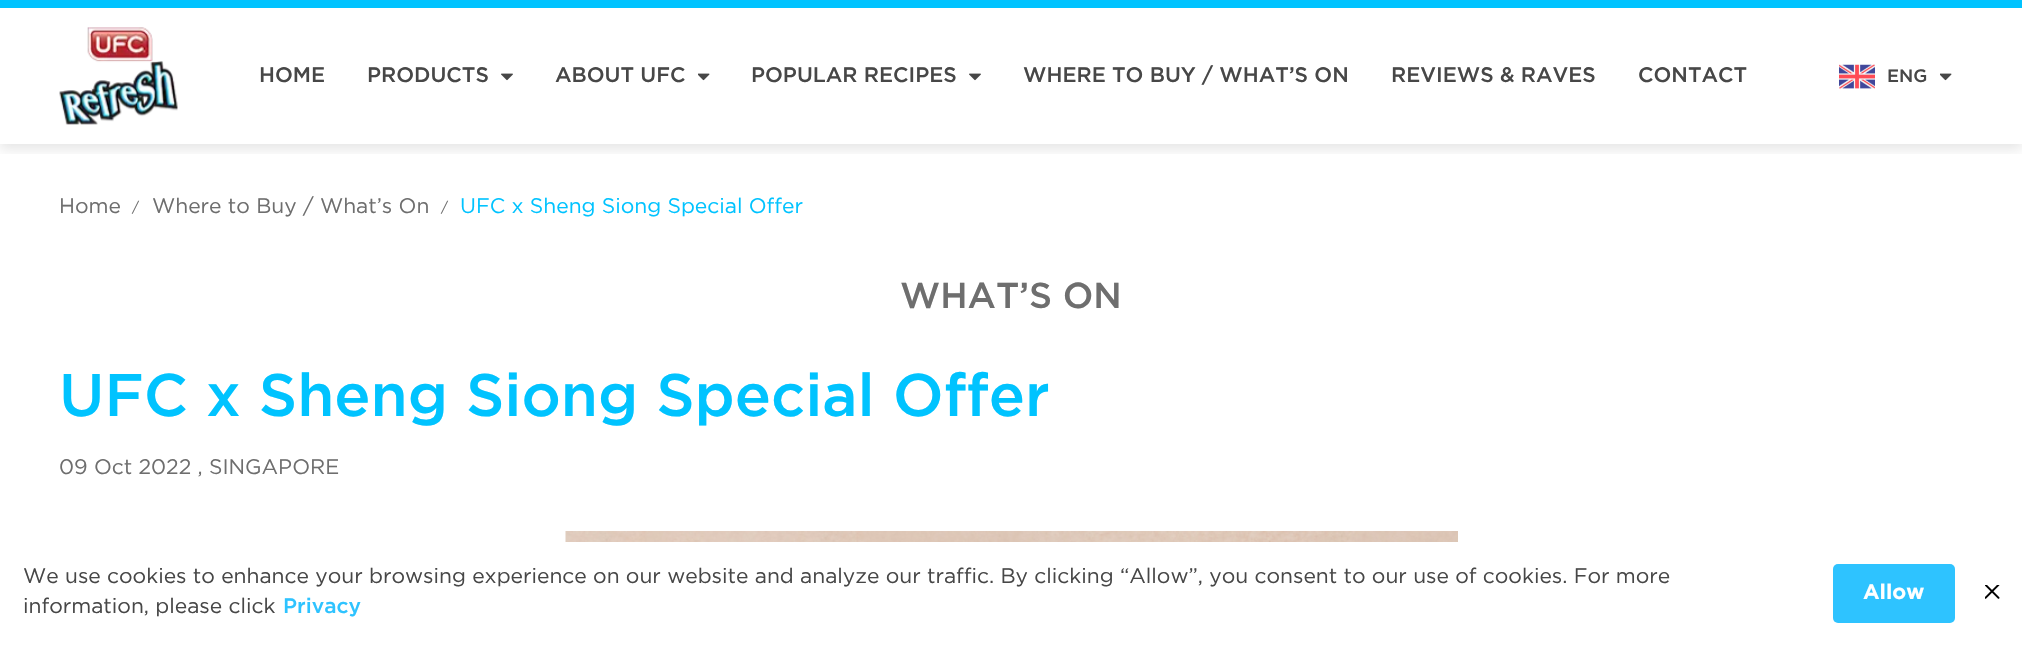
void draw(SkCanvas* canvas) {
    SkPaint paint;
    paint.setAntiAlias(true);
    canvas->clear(0xFFFFFFFF);
    canvas->save();
    canvas->clipRect(SkRect::MakeXYWH(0, 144, 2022, 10));
    paint.setColor(0x1A000000);
    paint.setMaskFilter(SkMaskFilter::MakeBlur(kNormal_SkBlurStyle, 6));
    canvas->drawRect(SkRect::MakeXYWH(0, 5, 2022, 144), paint);
    paint.setMaskFilter(nullptr);
    canvas->restore();
    paint.setColor(0xFF00C3FF);
    canvas->drawRect(SkRect::MakeXYWH(0, 0, 2022, 8), paint);
    canvas->drawImageRect(SkImages::DeferredFromEncodedData(SkData::MakeFromFileName("img1.png")), SkRect::MakeXYWH(59, 27, 119, 98), SkSamplingOptions());
    SkFont font1(fontMgr->matchFamilyStyle("Gotham", SkFontStyle(500, SkFontStyle::kNormal_Width, SkFontStyle::kUpright_Slant)), 21);
    font1.setSubpixel(true);
    paint.setColor(0xFF474747);
    canvas->drawString("HOME", 259, 82, font1, paint);
    canvas->drawString("PRODUCTS", 367, 82, font1, paint);
    canvas->drawImageRect(SkImages::DeferredFromEncodedData(SkData::MakeFromFileName("img2.png")), SkRect::MakeXYWH(501, 73, 12, 8), SkSamplingOptions());
    canvas->drawString("ABOUT UFC", 555, 82, font1, paint);
    canvas->drawImageRect(SkImages::DeferredFromEncodedData(SkData::MakeFromFileName("img3.png")), SkRect::MakeXYWH(698, 73, 12, 8), SkSamplingOptions());
    canvas->drawString("POPULAR RECIPES", 751, 82, font1, paint);
    canvas->drawImageRect(SkImages::DeferredFromEncodedData(SkData::MakeFromFileName("img2.png")), SkRect::MakeXYWH(969, 73, 12, 8), SkSamplingOptions());
    canvas->drawString("WHERE TO BUY / WHAT’S ON", 1023, 82, font1, paint);
    canvas->drawString("REVIEWS & RAVES", 1391, 82, font1, paint);
    canvas->drawString("CONTACT", 1638, 82, font1, paint);
    canvas->drawImageRect(SkImages::DeferredFromEncodedData(SkData::MakeFromFileName("img4.png")), SkRect::MakeXYWH(1839, 64, 36, 25), SkSamplingOptions());
    SkFont font2(fontMgr->matchFamilyStyle("Gotham", SkFontStyle(500, SkFontStyle::kNormal_Width, SkFontStyle::kUpright_Slant)), 18);
    font2.setSubpixel(true);
    canvas->drawString("ENG", 1887, 82, font2, paint);
    canvas->drawImageRect(SkImages::DeferredFromEncodedData(SkData::MakeFromFileName("img3.png")), SkRect::MakeXYWH(1940, 73, 12, 8), SkSamplingOptions());
    SkFont font3(fontMgr->matchFamilyStyle("Gotham", SkFontStyle::Normal()), 21);
    font3.setSubpixel(true);
    paint.setColor(0xFF6E6E6E);
    canvas->drawString("Home", 59, 213, font3, paint);
    SkFont font4(fontMgr->matchFamilyStyle("Gotham", SkFontStyle::Normal()), 14);
    font4.setSubpixel(true);
    canvas->drawString("/", 132, 212, font4, paint);
    canvas->drawString("Where to Buy / What’s On", 152, 213, font3, paint);
    canvas->drawString("/", 441, 212, font4, paint);
    paint.setColor(0xFF00C3FF);
    canvas->drawString("UFC x Sheng Siong Special Offer", 460, 213, font3, paint);
    SkFont font5(fontMgr->matchFamilyStyle("Gotham", SkFontStyle(500, SkFontStyle::kNormal_Width, SkFontStyle::kUpright_Slant)), 36);
    font5.setSubpixel(true);
    paint.setColor(0xFF6E6E6E);
    canvas->drawString("WHAT’S ON", 900, 308, font5, paint);
    SkFont font6(fontMgr->matchFamilyStyle("Gotham", SkFontStyle(500, SkFontStyle::kNormal_Width, SkFontStyle::kUpright_Slant)), 60);
    font6.setSubpixel(true);
    paint.setColor(0xFF00C3FF);
    canvas->drawString("UFC x Sheng Siong Special Offer", 59, 416, font6, paint);
    paint.setColor(0xFF6E6E6E);
    canvas->drawString("09 Oct 2022 , SINGAPORE", 59, 474, font3, paint);
    canvas->drawImageRect(SkImages::DeferredFromEncodedData(SkData::MakeFromFileName("img5.png")), SkRect::MakeXYWH(565, 531, 893, 11), SkSamplingOptions());
    paint.setColor(0xFF474747);
    canvas->drawString("We use cookies to enhance your browsing experience on our website and analyze our traffic. By clicking “Allow”, you consent to our use of cookies. For more", 23, 583, font3, paint);
    canvas->drawString("information, please click", 23, 613, font3, paint);
    paint.setColor(0xFF2EC3FF);
    canvas->drawString("Privacy", 283, 613, font1, paint);
    canvas->drawRoundRect(SkRect::MakeXYWH(1833, 564, 122, 59), 5, 5, paint);
    SkFont font7(fontMgr->matchFamilyStyle("Gotham", SkFontStyle::Bold()), 21);
    font7.setSubpixel(true);
    paint.setColor(0xFFFFFFFF);
    canvas->drawString("Allow", 1863, 599, font7, paint);
    canvas->drawImageRect(SkImages::DeferredFromEncodedData(SkData::MakeFromFileName("img6.png")), SkRect::MakeXYWH(1985, 585, 15, 14), SkSamplingOptions());
}
